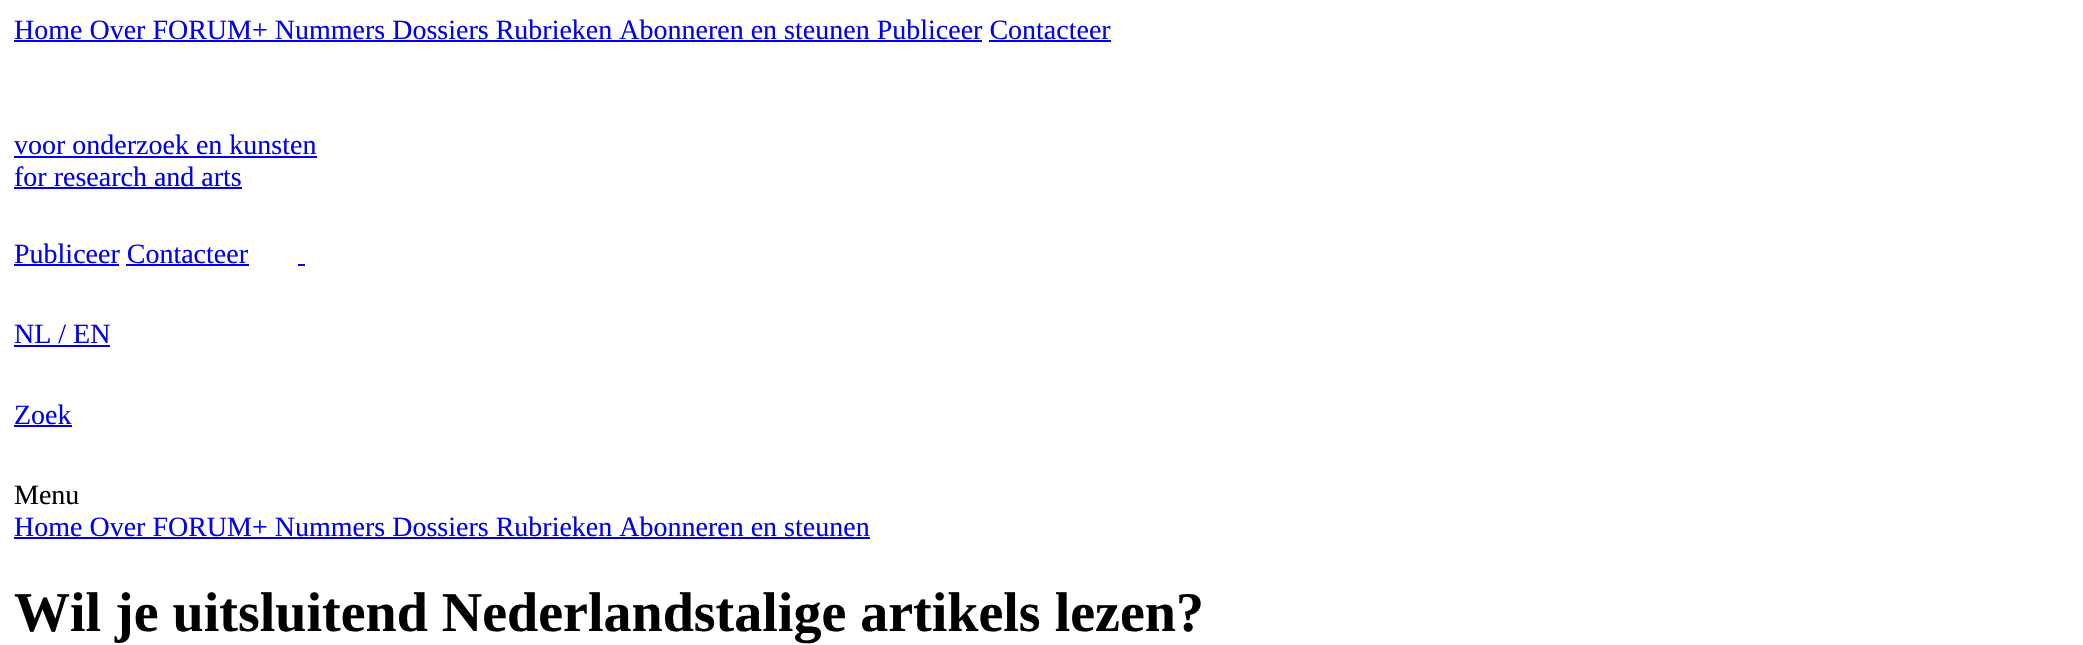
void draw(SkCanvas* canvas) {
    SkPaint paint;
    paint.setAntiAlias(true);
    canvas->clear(0xFFFFFFFF);
    SkFont font1(fontMgr->matchFamilyStyle("Liberation Serif", SkFontStyle::Normal()), 28);
    font1.setSubpixel(true);
    paint.setColor(0xFF0000EE);
    canvas->drawString("Home Over FORUM+ Nummers Dossiers Rubrieken Abonneren en steunen Publiceer Contacteer", 14, 39, font1, paint);
    canvas->drawRect(SkRect::MakeXYWH(14, 40, 968, 2), paint);
    canvas->drawRect(SkRect::MakeXYWH(989, 40, 122, 2), paint);
    canvas->drawString("voor onderzoek en kunsten", 14, 154, font1, paint);
    canvas->drawRect(SkRect::MakeXYWH(14, 156, 303, 2), paint);
    canvas->drawString("for research and arts", 14, 186, font1, paint);
    canvas->drawRect(SkRect::MakeXYWH(14, 187, 228, 2), paint);
    canvas->drawString("Publiceer Contacteer", 14, 263, font1, paint);
    canvas->drawRect(SkRect::MakeXYWH(14, 264, 105, 2), paint);
    canvas->drawRect(SkRect::MakeXYWH(126, 264, 123, 2), paint);
    canvas->drawRect(SkRect::MakeXYWH(298, 264, 7, 2), paint);
    canvas->drawString("NL / EN", 14, 343, font1, paint);
    canvas->drawRect(SkRect::MakeXYWH(14, 345, 96, 2), paint);
    canvas->drawString("Zoek", 14, 424, font1, paint);
    canvas->drawRect(SkRect::MakeXYWH(14, 425, 58, 2), paint);
    paint.setColor(0xFF000000);
    canvas->drawString("Menu", 14, 504, font1, paint);
    paint.setColor(0xFF0000EE);
    canvas->drawString("Home Over FORUM+ Nummers Dossiers Rubrieken Abonneren en steunen", 14, 536, font1, paint);
    canvas->drawRect(SkRect::MakeXYWH(14, 537, 856, 2), paint);
    SkFont font2(fontMgr->matchFamilyStyle("Liberation Serif", SkFontStyle::Bold()), 56);
    font2.setSubpixel(true);
    paint.setColor(0xFF000000);
    canvas->drawString("Wil je uitsluitend Nederlandstalige artikels lezen?", 14, 631, font2, paint);
}
